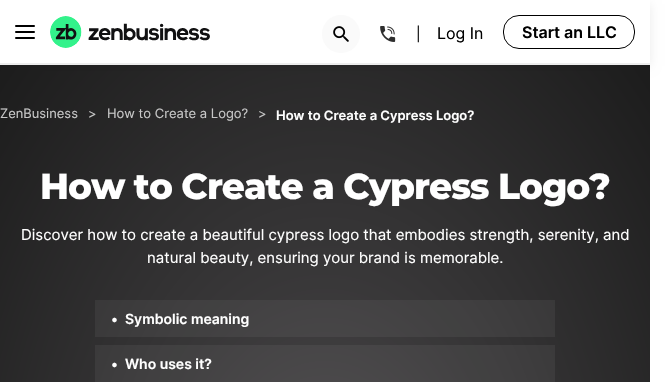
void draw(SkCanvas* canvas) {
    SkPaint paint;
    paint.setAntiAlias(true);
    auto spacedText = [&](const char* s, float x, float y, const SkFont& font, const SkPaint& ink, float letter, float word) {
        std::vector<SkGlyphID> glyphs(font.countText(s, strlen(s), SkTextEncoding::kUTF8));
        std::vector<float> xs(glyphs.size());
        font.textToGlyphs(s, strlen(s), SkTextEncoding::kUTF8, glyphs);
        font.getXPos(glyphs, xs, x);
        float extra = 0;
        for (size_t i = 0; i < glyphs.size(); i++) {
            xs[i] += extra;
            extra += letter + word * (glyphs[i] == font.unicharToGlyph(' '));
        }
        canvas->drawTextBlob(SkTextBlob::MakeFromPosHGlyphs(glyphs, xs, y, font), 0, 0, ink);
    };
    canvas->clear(0xFFFFFFFF);
    {
        const SkColor colors[] = {0xFF4B494B, 0xFF1C1C1C};
        const float stops[] = {0, 1};
        SkMatrix m = SkMatrix::Translate(325, 541).preScale(460, 677);
        paint.setShader(SkGradientShader::MakeRadial({0, 0}, 1, colors, stops, 2, SkTileMode::kClamp, 0, &m));
        paint.setAlpha(255);
    }
    canvas->drawRect(SkRect::MakeXYWH(0, 65, 650, 317), paint);
    paint.setShader(nullptr);
    paint.setColor(0x14000000);
    paint.setMaskFilter(SkMaskFilter::MakeBlur(kNormal_SkBlurStyle, 5));
    canvas->drawRect(SkRect::MakeXYWH(0, 4, 650, 62), paint);
    paint.setMaskFilter(nullptr);
    paint.setColor(0xFFFFFFFF);
    canvas->drawRect(SkRect::MakeXYWH(0, 0, 650, 63), paint);
    paint.setColor(0xFFEDEDED);
    canvas->drawRect(SkRect::MakeXYWH(0, 63, 650, 2), paint);
    paint.setColor(0xFF000000);
    canvas->drawRoundRect(SkRect::MakeXYWH(15, 31, 20, 2), 1, 1, paint);
    canvas->drawRoundRect(SkRect::MakeXYWH(15, 25, 20, 2), 1, 1, paint);
    canvas->drawRoundRect(SkRect::MakeXYWH(15, 37, 20, 2), 1, 1, paint);
    canvas->drawImageRect(SkImages::DeferredFromEncodedData(SkData::MakeFromFileName("img1.png")), SkRect::MakeXYWH(50, 16, 160, 32), SkSamplingOptions());
    paint.setColor(0xFFFAFAFA);
    canvas->drawCircle(341, 34, 19, paint);
    canvas->drawImageRect(SkImages::DeferredFromEncodedData(SkData::MakeFromFileName("img2.png")), SkRect::MakeXYWH(333, 26, 16, 16), SkSamplingOptions());
    canvas->drawImageRect(SkImages::DeferredFromEncodedData(SkData::MakeFromFileName("img3.png")), SkRect::MakeXYWH(380, 26, 16, 16), SkSamplingOptions());
    SkFont font1(fontMgr->matchFamilyStyle("Inter", SkFontStyle::Normal()), 14);
    font1.setSubpixel(true);
    paint.setColor(0xFF000000);
    canvas->drawString("|", 416, 39, font1, paint);
    SkFont font2(fontMgr->matchFamilyStyle("Inter", SkFontStyle::Normal()), 16);
    font2.setSubpixel(true);
    canvas->drawString("Log In", 437, 39, font2, paint);
    paint.setStyle(SkPaint::kStroke_Style);
    paint.setStrokeWidth(1);
    canvas->drawRoundRect(SkRect::MakeXYWH(503.5f, 15.5f, 131, 33), 15.5f, 15.5f, paint);
    SkFont font3(fontMgr->matchFamilyStyle("Inter", SkFontStyle(600, SkFontStyle::kNormal_Width, SkFontStyle::kUpright_Slant)), 16);
    font3.setSubpixel(true);
    paint.setStyle(SkPaint::kFill_Style);
    canvas->drawString("Start an LLC", 522, 38, font3, paint);
    SkFont font4(fontMgr->matchFamilyStyle("Inter", SkFontStyle::Normal()), 13);
    font4.setSubpixel(true);
    paint.setColor(0xFFC7C7C7);
    canvas->drawString("ZenBusiness", 0, 118, font4, paint);
    canvas->drawString(">", 88, 118, font4, paint);
    canvas->drawString("How to Create a Logo?", 107, 118, font4, paint);
    canvas->drawString(">", 258, 118, font4, paint);
    SkFont font5(fontMgr->matchFamilyStyle("Inter", SkFontStyle(600, SkFontStyle::kNormal_Width, SkFontStyle::kUpright_Slant)), 13);
    font5.setSubpixel(true);
    paint.setColor(0xFFFFFFFF);
    canvas->drawString("How to Create a Cypress Logo?", 276, 120, font5, paint);
    SkFont font6(fontMgr->matchFamilyStyle("Montserrat", SkFontStyle(800, SkFontStyle::kNormal_Width, SkFontStyle::kUpright_Slant)), 36);
    font6.setSubpixel(true);
    spacedText("How to Create a Cypress Logo?", 40, 199, font6, paint, -1, 0);
    SkFont font7(fontMgr->matchFamilyStyle("Inter", SkFontStyle::Normal()), 15);
    font7.setSubpixel(true);
    canvas->drawString("Discover how to create a beautiful cypress logo that embodies strength, serenity, and", 21, 240, font7, paint);
    canvas->drawString("natural beauty, ensuring your brand is memorable.", 147, 263, font7, paint);
    paint.setColor(0x0DFAFAFA);
    canvas->drawRect(SkRect::MakeXYWH(95, 300, 460, 37), paint);
    SkFont font8(fontMgr->matchFamilyStyle("Inter", SkFontStyle(600, SkFontStyle::kNormal_Width, SkFontStyle::kUpright_Slant)), 14);
    font8.setSubpixel(true);
    paint.setColor(0xFFFFFFFF);
    canvas->drawString("•", 111, 324, font8, paint);
    canvas->drawString("Symbolic meaning", 125, 324, font8, paint);
    paint.setColor(0x0DFAFAFA);
    canvas->drawRect(SkRect::MakeXYWH(95, 345, 460, 37), paint);
    paint.setColor(0xFFFFFFFF);
    canvas->drawString("•", 111, 369, font8, paint);
    canvas->drawString("Who uses it?", 125, 369, font8, paint);
}
